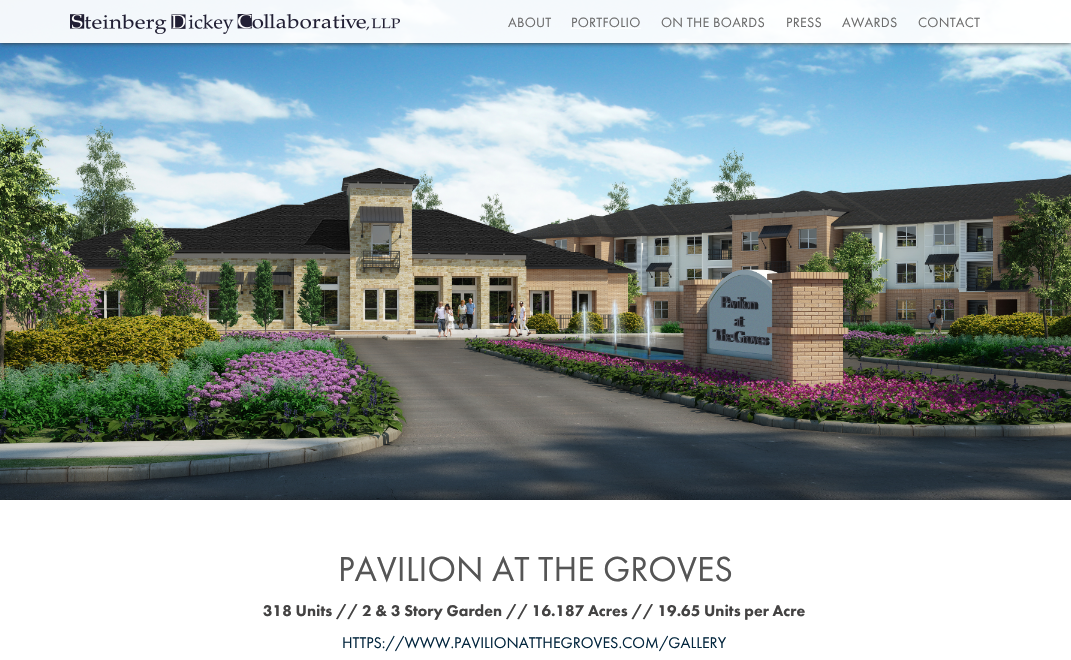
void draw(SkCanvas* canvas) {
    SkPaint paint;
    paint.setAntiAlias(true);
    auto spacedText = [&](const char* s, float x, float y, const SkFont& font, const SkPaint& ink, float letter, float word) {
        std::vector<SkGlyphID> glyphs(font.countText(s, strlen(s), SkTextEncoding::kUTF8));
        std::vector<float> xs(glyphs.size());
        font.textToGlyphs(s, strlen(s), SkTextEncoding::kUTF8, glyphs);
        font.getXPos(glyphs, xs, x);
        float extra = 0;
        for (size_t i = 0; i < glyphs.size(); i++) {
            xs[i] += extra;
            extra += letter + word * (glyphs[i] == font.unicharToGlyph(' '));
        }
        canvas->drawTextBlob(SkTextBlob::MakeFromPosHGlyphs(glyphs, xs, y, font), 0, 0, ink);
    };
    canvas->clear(0xFFFFFFFF);
    canvas->drawImageRect(SkImages::DeferredFromEncodedData(SkData::MakeFromFileName("img1.png")), SkRect::MakeXYWH(0, 0, 1071, 500), SkSamplingOptions());
    canvas->save();
    canvas->clipRect(SkRect::MakeXYWH(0, 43, 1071, 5));
    paint.setColor(0xFF333333);
    paint.setMaskFilter(SkMaskFilter::MakeBlur(kNormal_SkBlurStyle, 2.5f));
    canvas->drawRect(SkRect::MakeXYWH(0, 0, 1071, 43), paint);
    paint.setMaskFilter(nullptr);
    canvas->restore();
    paint.setColor(0xF0FFFFFF);
    canvas->drawRect(SkRect::MakeXYWH(0, 0, 1071, 43), paint);
    canvas->drawImageRect(SkImages::DeferredFromEncodedData(SkData::MakeFromFileName("img2.png")), SkRect::MakeXYWH(70, 14, 330, 20), SkSamplingOptions());
    SkFont font1(fontMgr->matchFamilyStyle("Futura PT", SkFontStyle::Normal()), 14);
    font1.setSubpixel(true);
    paint.setColor(0xFF6C6C6C);
    spacedText("ABOUT", 508, 27, font1, paint, 0.25f, 0);
    spacedText("PORTFOLIO", 571, 27, font1, paint, 0.25f, 0);
    paint.setColor(0xFFFFFFFF);
    canvas->drawRect(SkRect::MakeXYWH(571, 28, 70, 1), paint);
    paint.setColor(0xFF6C6C6C);
    spacedText("ON THE BOARDS", 661, 27, font1, paint, 0.25f, 0);
    spacedText("PRESS", 786, 27, font1, paint, 0.25f, 0);
    spacedText("AWARDS", 842, 27, font1, paint, 0.25f, 0);
    spacedText("CONTACT", 918, 27, font1, paint, 0.25f, 0);
    SkFont font2(fontMgr->matchFamilyStyle("Futura PT", SkFontStyle::Normal()), 36);
    font2.setSubpixel(true);
    paint.setColor(0xFF555555);
    canvas->drawString("PAVILION AT THE GROVES", 338, 581, font2, paint);
    SkFont font3(fontMgr->matchFamilyStyle("Futura PT", SkFontStyle(900, SkFontStyle::kNormal_Width, SkFontStyle::kUpright_Slant)), 16);
    font3.setSubpixel(true);
    paint.setColor(0xFF444343);
    canvas->drawString("318 Units // 2 & 3 Story Garden // 16.187 Acres // 19.65 Units per Acre", 263, 616, font3, paint);
    SkFont font4(fontMgr->matchFamilyStyle("Futura PT", SkFontStyle::Normal()), 16);
    font4.setSubpixel(true);
    paint.setColor(0xFF03263E);
    canvas->drawString("HTTPS://WWW.PAVILIONATTHEGROVES.COM/GALLERY", 342, 648, font4, paint);
}
